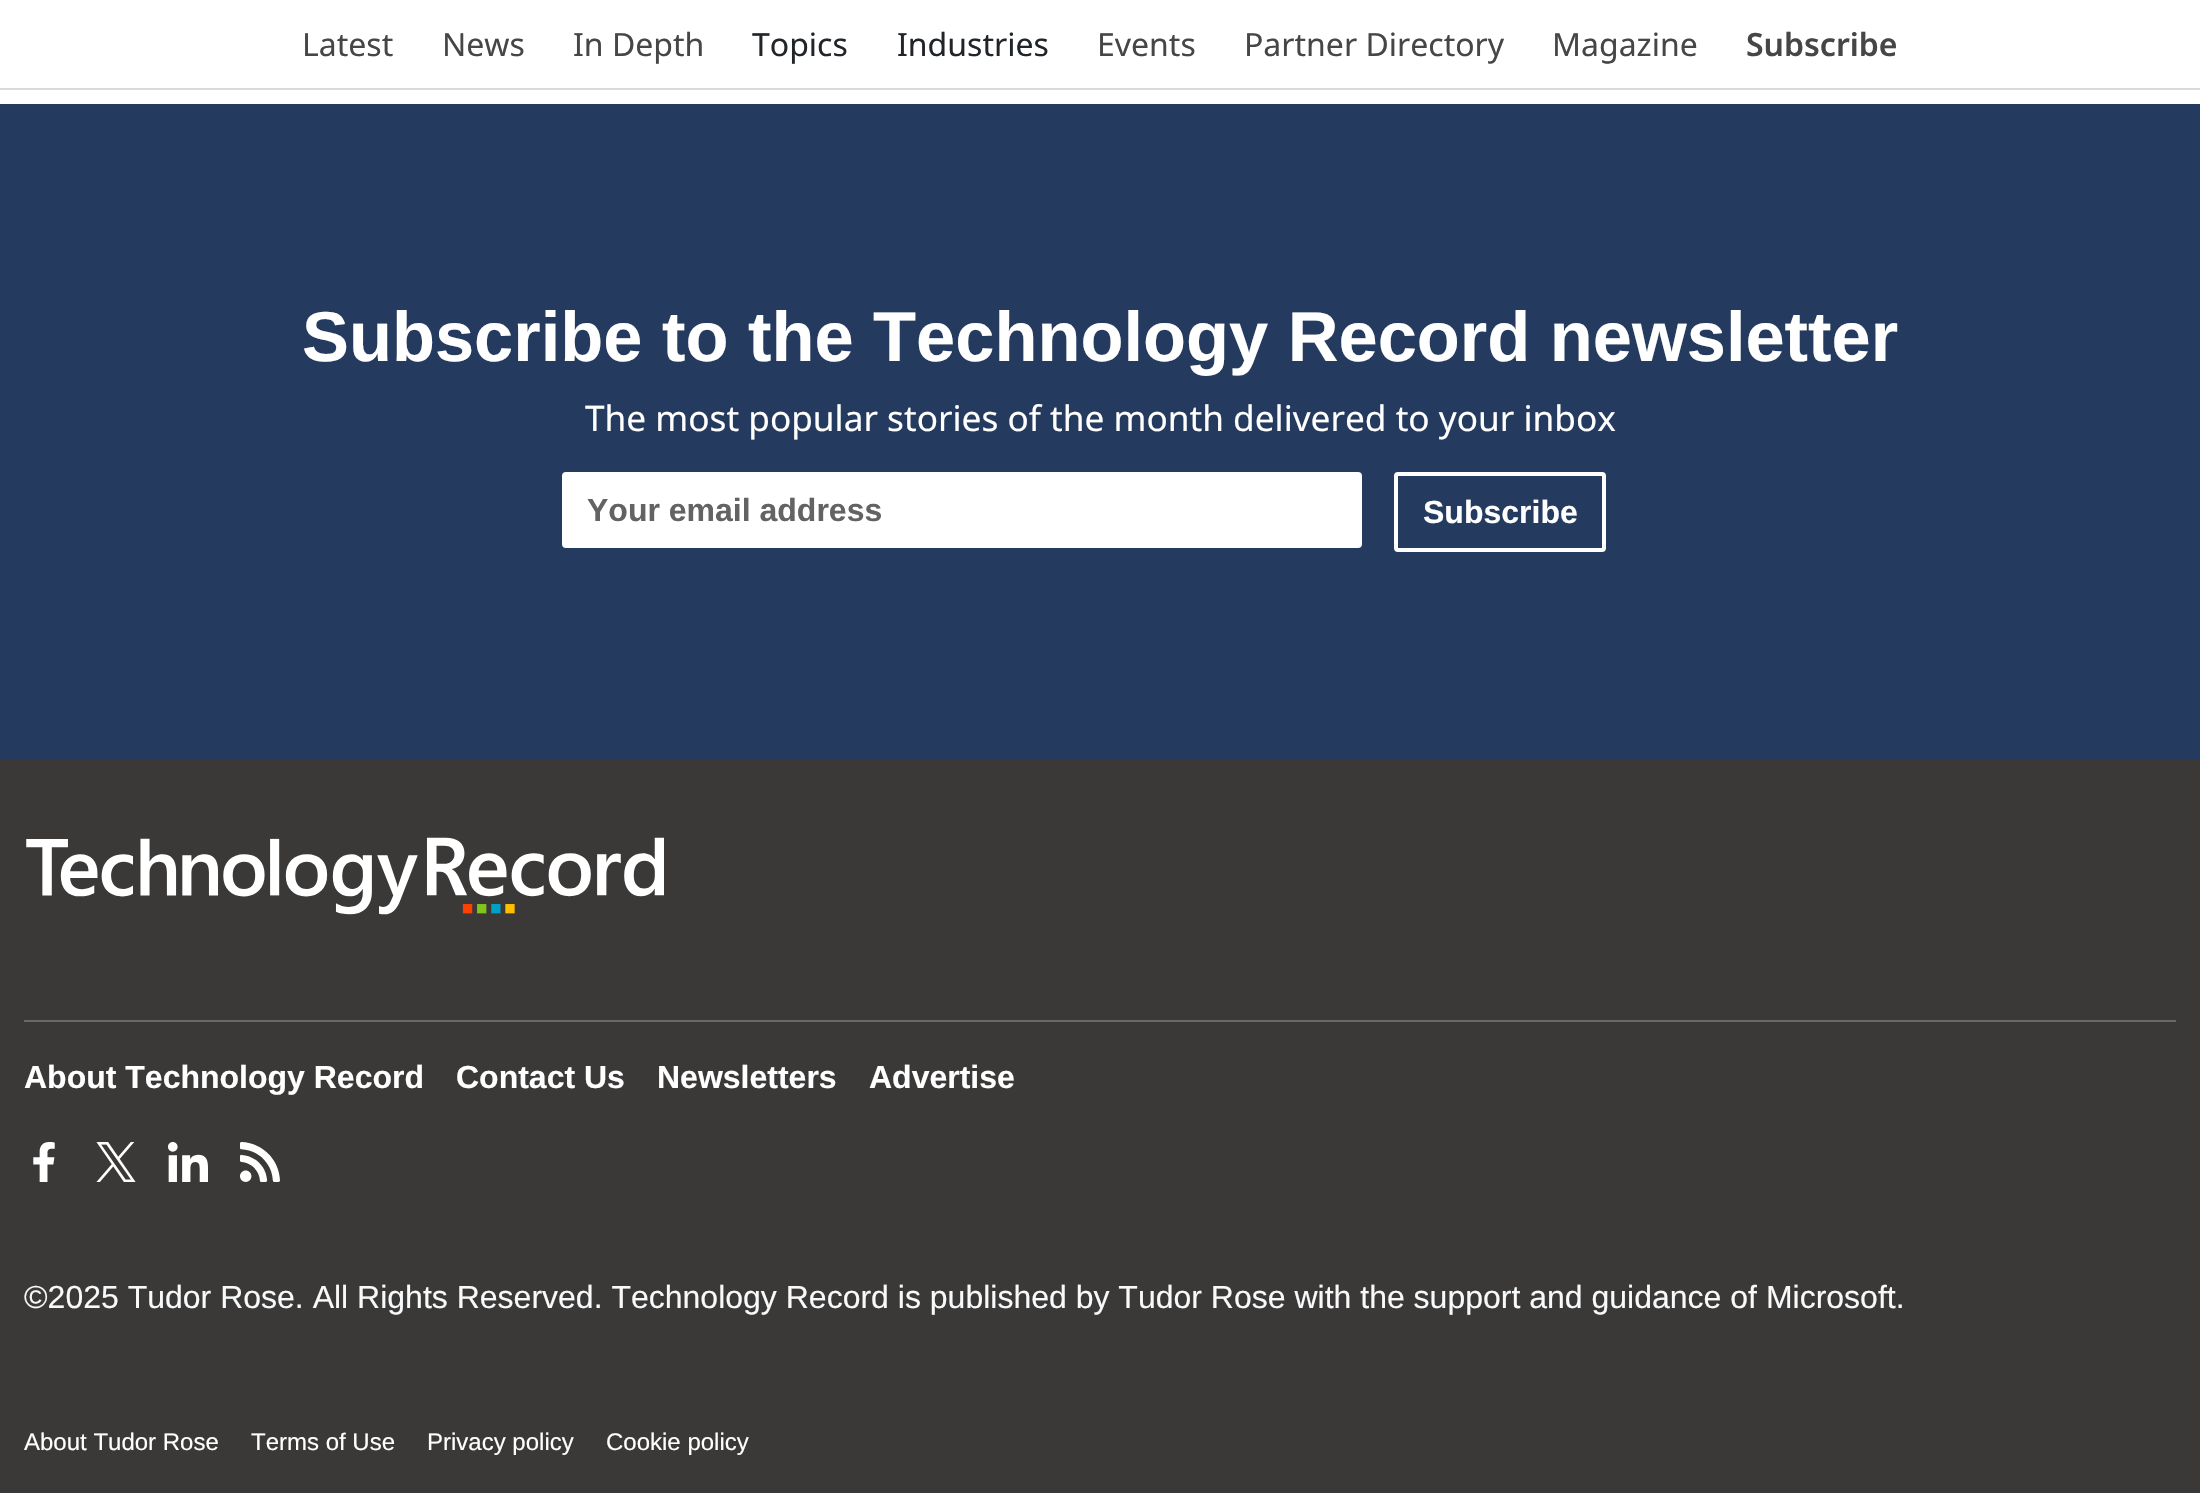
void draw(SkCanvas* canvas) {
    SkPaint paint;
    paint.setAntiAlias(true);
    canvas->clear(0xFFFFFFFF);
    paint.setColor(0xFFD9D9D9);
    canvas->drawRect(SkRect::MakeXYWH(0, 88, 2200, 2), paint);
    SkFont font1(fontMgr->matchFamilyStyle("Noto Sans", SkFontStyle::Normal()), 32);
    font1.setSubpixel(true);
    paint.setColor(0xFF464646);
    canvas->drawString("Latest", 302, 56, font1, paint);
    canvas->drawString("News", 442, 56, font1, paint);
    canvas->drawString("In Depth", 573, 56, font1, paint);
    paint.setColor(0xFF212529);
    canvas->drawString("Topics", 752, 56, font1, paint);
    canvas->drawString("Industries", 897, 56, font1, paint);
    paint.setColor(0xFF464646);
    canvas->drawString("Events", 1097, 56, font1, paint);
    canvas->drawString("Partner Directory", 1244, 56, font1, paint);
    canvas->drawString("Magazine", 1552, 56, font1, paint);
    SkFont font2(fontMgr->matchFamilyStyle("Noto Sans", SkFontStyle(600, SkFontStyle::kNormal_Width, SkFontStyle::kUpright_Slant)), 32);
    font2.setSubpixel(true);
    canvas->drawString("Subscribe", 1746, 56, font2, paint);
    paint.setColor(0xFF243A5E);
    canvas->drawRect(SkRect::MakeXYWH(0, 104, 2200, 656), paint);
    SkFont font3(fontMgr->matchFamilyStyle("Liberation Sans", SkFontStyle::Bold()), 70.4f);
    font3.setSubpixel(true);
    paint.setColor(0xFFFFFFFF);
    canvas->drawString("Subscribe to the Technology Record newsletter", 302, 361, font3, paint);
    SkFont font4(fontMgr->matchFamilyStyle("Noto Sans", SkFontStyle::Normal()), 35.2f);
    font4.setSubpixel(true);
    canvas->drawString("The most popular stories of the month delivered to your inbox", 585, 431, font4, paint);
    canvas->drawRoundRect(SkRect::MakeXYWH(564, 474, 796, 72), 2, 2, paint);
    paint.setStyle(SkPaint::kStroke_Style);
    paint.setStrokeWidth(4);
    canvas->drawRoundRect(SkRect::MakeXYWH(564, 474, 796, 72), 2, 2, paint);
    SkFont font5(fontMgr->matchFamilyStyle("Liberation Sans", SkFontStyle::Bold()), 32);
    font5.setSubpixel(true);
    paint.setStyle(SkPaint::kFill_Style);
    paint.setColor(0xFF636363);
    canvas->drawString("Your email address", 587, 521, font5, paint);
    paint.setStyle(SkPaint::kStroke_Style);
    paint.setColor(0xFFFFFFFF);
    canvas->drawRoundRect(SkRect::MakeXYWH(1396, 474, 208, 76), 2, 2, paint);
    paint.setStyle(SkPaint::kFill_Style);
    canvas->drawString("Subscribe", 1423, 523, font5, paint);
    paint.setColor(0xFF3B3938);
    canvas->drawRect(SkRect::MakeXYWH(0, 760, 2200, 733), paint);
    canvas->drawImageRect(SkImages::DeferredFromEncodedData(SkData::MakeFromFileName("img1.png")), SkRect::MakeXYWH(26, 837, 638, 78), SkSamplingOptions());
    paint.setColor(0xFF6A6969);
    canvas->drawRect(SkRect::MakeXYWH(24, 1020, 2152, 2), paint);
    paint.setColor(0xFFFFFFFF);
    canvas->drawString("About Technology Record", 24, 1088, font5, paint);
    canvas->drawString("Contact Us", 456, 1088, font5, paint);
    canvas->drawString("Newsletters", 657, 1088, font5, paint);
    canvas->drawString("Advertise", 869, 1088, font5, paint);
    canvas->drawImageRect(SkImages::DeferredFromEncodedData(SkData::MakeFromFileName("img2.png")), SkRect::MakeXYWH(33, 1142, 22, 40), SkSamplingOptions());
    canvas->drawImageRect(SkImages::DeferredFromEncodedData(SkData::MakeFromFileName("img3.png")), SkRect::MakeXYWH(96, 1142, 40, 40), SkSamplingOptions());
    canvas->drawImageRect(SkImages::DeferredFromEncodedData(SkData::MakeFromFileName("img4.png")), SkRect::MakeXYWH(168, 1142, 40, 40), SkSamplingOptions());
    canvas->drawImageRect(SkImages::DeferredFromEncodedData(SkData::MakeFromFileName("img5.png")), SkRect::MakeXYWH(240, 1142, 40, 40), SkSamplingOptions());
    SkFont font6(fontMgr->matchFamilyStyle("Liberation Sans", SkFontStyle::Normal()), 32);
    font6.setSubpixel(true);
    paint.setColor(0xFFF8F9FA);
    canvas->drawString("©2025 Tudor Rose. All Rights Reserved. Technology Record is published by Tudor Rose with the support and guidance of Microsoft.", 24, 1308, font6, paint);
    SkFont font7(fontMgr->matchFamilyStyle("Liberation Sans", SkFontStyle::Normal()), 24);
    font7.setSubpixel(true);
    paint.setColor(0xFFFFFFFF);
    canvas->drawString("About Tudor Rose", 24, 1450, font7, paint);
    canvas->drawString("Terms of Use", 251, 1450, font7, paint);
    canvas->drawString("Privacy policy", 427, 1450, font7, paint);
    canvas->drawString("Cookie policy", 606, 1450, font7, paint);
}
